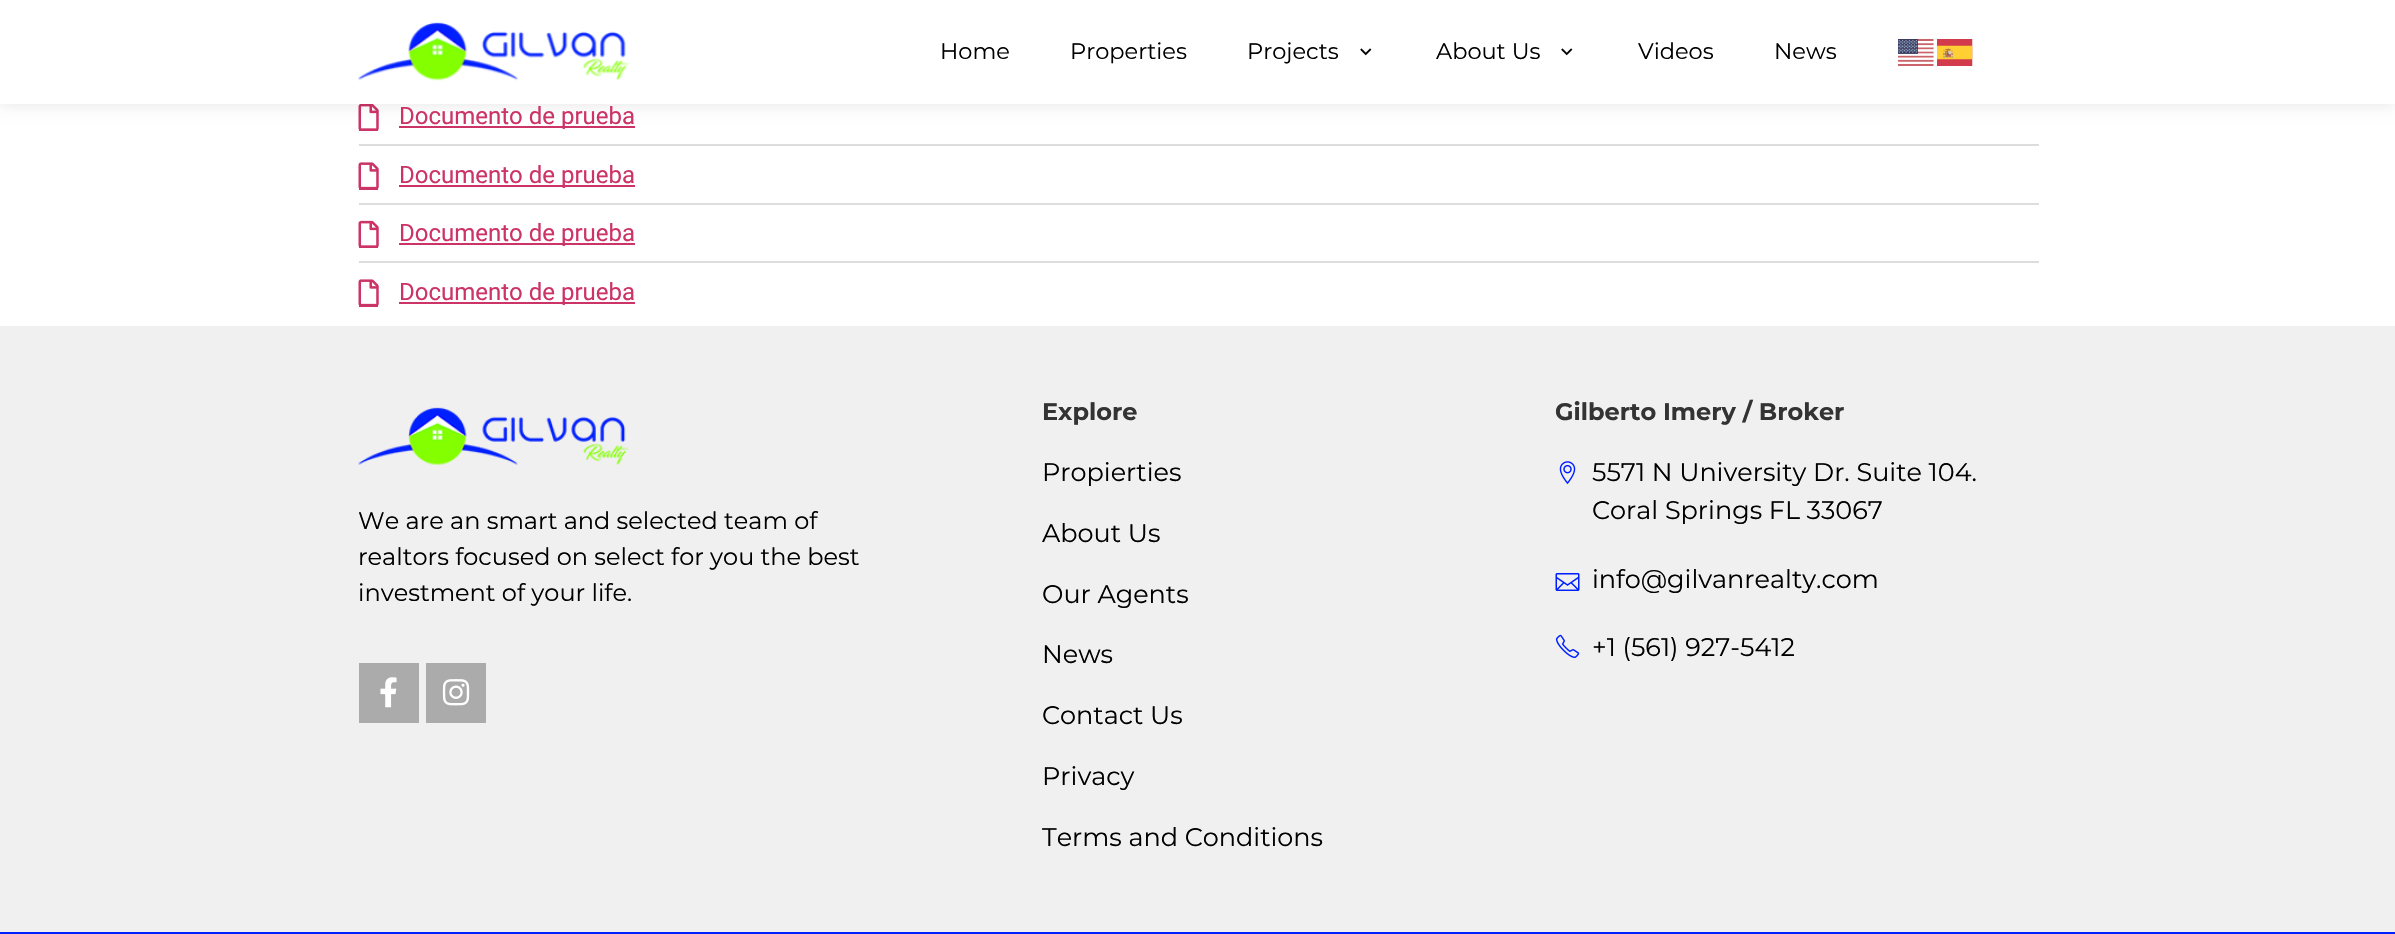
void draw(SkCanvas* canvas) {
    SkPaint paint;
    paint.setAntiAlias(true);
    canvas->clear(0xFFFFFFFF);
    paint.setColor(0xFFCC3366);
    canvas->drawRect(SkRect::MakeXYWH(359, 129, 19, 2), paint);
    canvas->drawImageRect(SkImages::DeferredFromEncodedData(SkData::MakeFromFileName("img5.png")), SkRect::MakeXYWH(358, 104, 21, 26), SkSamplingOptions());
    canvas->drawRect(SkRect::MakeXYWH(399, 126, 236, 2), paint);
    paint.setColor(0x1A000000);
    paint.setMaskFilter(SkMaskFilter::MakeBlur(kNormal_SkBlurStyle, 7.5f));
    canvas->drawRect(SkRect::MakeXYWH(0, 0, 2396, 104), paint);
    paint.setMaskFilter(nullptr);
    paint.setColor(0xFFFFFFFF);
    canvas->drawRect(SkRect::MakeXYWH(0, 0, 2395, 104), paint);
    canvas->drawImageRect(SkImages::DeferredFromEncodedData(SkData::MakeFromFileName("img1.png")), SkRect::MakeXYWH(358, 22, 271, 59), SkSamplingOptions());
    SkFont font1(fontMgr->matchFamilyStyle("Montserrat", SkFontStyle::Normal()), 22.5f);
    font1.setSubpixel(true);
    paint.setColor(0xFF000000);
    canvas->drawString("Home", 940, 59, font1, paint);
    canvas->drawString("Properties", 1070, 59, font1, paint);
    canvas->drawString("Projects", 1247, 59, font1, paint);
    canvas->drawImageRect(SkImages::DeferredFromEncodedData(SkData::MakeFromFileName("img2.png")), SkRect::MakeXYWH(1360, 48, 12, 8), SkSamplingOptions());
    canvas->drawString("About Us", 1436, 59, font1, paint);
    canvas->drawImageRect(SkImages::DeferredFromEncodedData(SkData::MakeFromFileName("img2.png")), SkRect::MakeXYWH(1561, 48, 12, 8), SkSamplingOptions());
    canvas->drawString("Videos", 1638, 59, font1, paint);
    canvas->drawString("News", 1774, 59, font1, paint);
    canvas->drawImageRect(SkImages::DeferredFromEncodedData(SkData::MakeFromFileName("img3.png")), SkRect::MakeXYWH(1898, 39, 36, 27), SkSamplingOptions());
    canvas->drawImageRect(SkImages::DeferredFromEncodedData(SkData::MakeFromFileName("img4.png")), SkRect::MakeXYWH(1937, 39, 36, 27), SkSamplingOptions());
    SkFont font2(fontMgr->matchFamilyStyle("Roboto", SkFontStyle::Normal()), 24);
    font2.setSubpixel(true);
    paint.setColor(0xFFCC3366);
    canvas->drawString("Documento de prueba", 399, 124, font2, paint);
    paint.setColor(0xFFDDDDDD);
    canvas->drawRect(SkRect::MakeXYWH(359, 144, 1680, 2), paint);
    paint.setColor(0xFFCC3366);
    canvas->drawRect(SkRect::MakeXYWH(359, 188, 19, 2), paint);
    canvas->drawImageRect(SkImages::DeferredFromEncodedData(SkData::MakeFromFileName("img6.png")), SkRect::MakeXYWH(358, 162, 21, 27), SkSamplingOptions());
    canvas->drawRect(SkRect::MakeXYWH(399, 185, 236, 2), paint);
    canvas->drawString("Documento de prueba", 399, 183, font2, paint);
    paint.setColor(0xFFDDDDDD);
    canvas->drawRect(SkRect::MakeXYWH(359, 203, 1680, 2), paint);
    paint.setColor(0xFFCC3366);
    canvas->drawRect(SkRect::MakeXYWH(359, 246, 19, 2), paint);
    canvas->drawImageRect(SkImages::DeferredFromEncodedData(SkData::MakeFromFileName("img7.png")), SkRect::MakeXYWH(358, 220, 21, 27), SkSamplingOptions());
    canvas->drawRect(SkRect::MakeXYWH(399, 243, 236, 2), paint);
    canvas->drawString("Documento de prueba", 399, 241, font2, paint);
    paint.setColor(0xFFDDDDDD);
    canvas->drawRect(SkRect::MakeXYWH(359, 261, 1680, 2), paint);
    paint.setColor(0xFFCC3366);
    canvas->drawRect(SkRect::MakeXYWH(359, 305, 19, 2), paint);
    canvas->drawImageRect(SkImages::DeferredFromEncodedData(SkData::MakeFromFileName("img6.png")), SkRect::MakeXYWH(358, 279, 21, 27), SkSamplingOptions());
    canvas->drawRect(SkRect::MakeXYWH(399, 302, 236, 2), paint);
    canvas->drawString("Documento de prueba", 399, 300, font2, paint);
    paint.setColor(0xFFF0F0F0);
    canvas->drawRect(SkRect::MakeXYWH(0, 326, 2395, 606), paint);
    canvas->drawImageRect(SkImages::DeferredFromEncodedData(SkData::MakeFromFileName("img8.png")), SkRect::MakeXYWH(358, 407, 271, 58), SkSamplingOptions());
    SkFont font3(fontMgr->matchFamilyStyle("Montserrat", SkFontStyle::Normal()), 24);
    font3.setSubpixel(true);
    paint.setColor(0xFF000000);
    canvas->drawString("We are an smart and selected team of", 358, 529, font3, paint);
    canvas->drawString("realtors focused on select for you the best", 358, 565, font3, paint);
    canvas->drawString("investment of your life.", 358, 601, font3, paint);
    paint.setColor(0xFFABABAB);
    canvas->drawRect(SkRect::MakeXYWH(359, 663, 60, 60), paint);
    canvas->drawImageRect(SkImages::DeferredFromEncodedData(SkData::MakeFromFileName("img9.png")), SkRect::MakeXYWH(380, 677, 17, 31), SkSamplingOptions());
    canvas->drawRect(SkRect::MakeXYWH(426, 663, 60, 60), paint);
    canvas->drawImageRect(SkImages::DeferredFromEncodedData(SkData::MakeFromFileName("img10.png")), SkRect::MakeXYWH(442, 679, 28, 27), SkSamplingOptions());
    SkFont font4(fontMgr->matchFamilyStyle("Montserrat", SkFontStyle::Bold()), 24);
    font4.setSubpixel(true);
    paint.setColor(0xFF333333);
    canvas->drawString("Explore", 1042, 420, font4, paint);
    SkFont font5(fontMgr->matchFamilyStyle("Montserrat", SkFontStyle::Normal()), 25.5f);
    font5.setSubpixel(true);
    paint.setColor(0xFF000000);
    canvas->drawString("Propierties", 1042, 481, font5, paint);
    canvas->drawString("About Us", 1042, 542, font5, paint);
    canvas->drawString("Our Agents", 1042, 603, font5, paint);
    canvas->drawString("News", 1042, 663, font5, paint);
    canvas->drawString("Contact Us", 1042, 724, font5, paint);
    canvas->drawString("Privacy", 1042, 785, font5, paint);
    canvas->drawString("Terms and Conditions", 1042, 846, font5, paint);
    paint.setColor(0xFF333333);
    canvas->drawString("Gilberto Imery / Broker", 1555, 420, font4, paint);
    canvas->drawImageRect(SkImages::DeferredFromEncodedData(SkData::MakeFromFileName("img11.png")), SkRect::MakeXYWH(1559, 461, 17, 24), SkSamplingOptions());
    paint.setColor(0xFF000000);
    canvas->drawString("5571 N University Dr. Suite 104.", 1592, 481, font5, paint);
    canvas->drawString("Coral Springs FL 33067", 1592, 519, font5, paint);
    canvas->drawImageRect(SkImages::DeferredFromEncodedData(SkData::MakeFromFileName("img12.png")), SkRect::MakeXYWH(1555, 573, 25, 18), SkSamplingOptions());
    canvas->drawString("info@gilvanrealty.com", 1592, 588, font5, paint);
    canvas->drawImageRect(SkImages::DeferredFromEncodedData(SkData::MakeFromFileName("img13.png")), SkRect::MakeXYWH(1555, 634, 25, 25), SkSamplingOptions());
    canvas->drawString("+1 (561) 927-5412", 1592, 656, font5, paint);
    paint.setColor(0xFF001FFF);
    canvas->drawRect(SkRect::MakeXYWH(0, 932, 2395, 2), paint);
}
